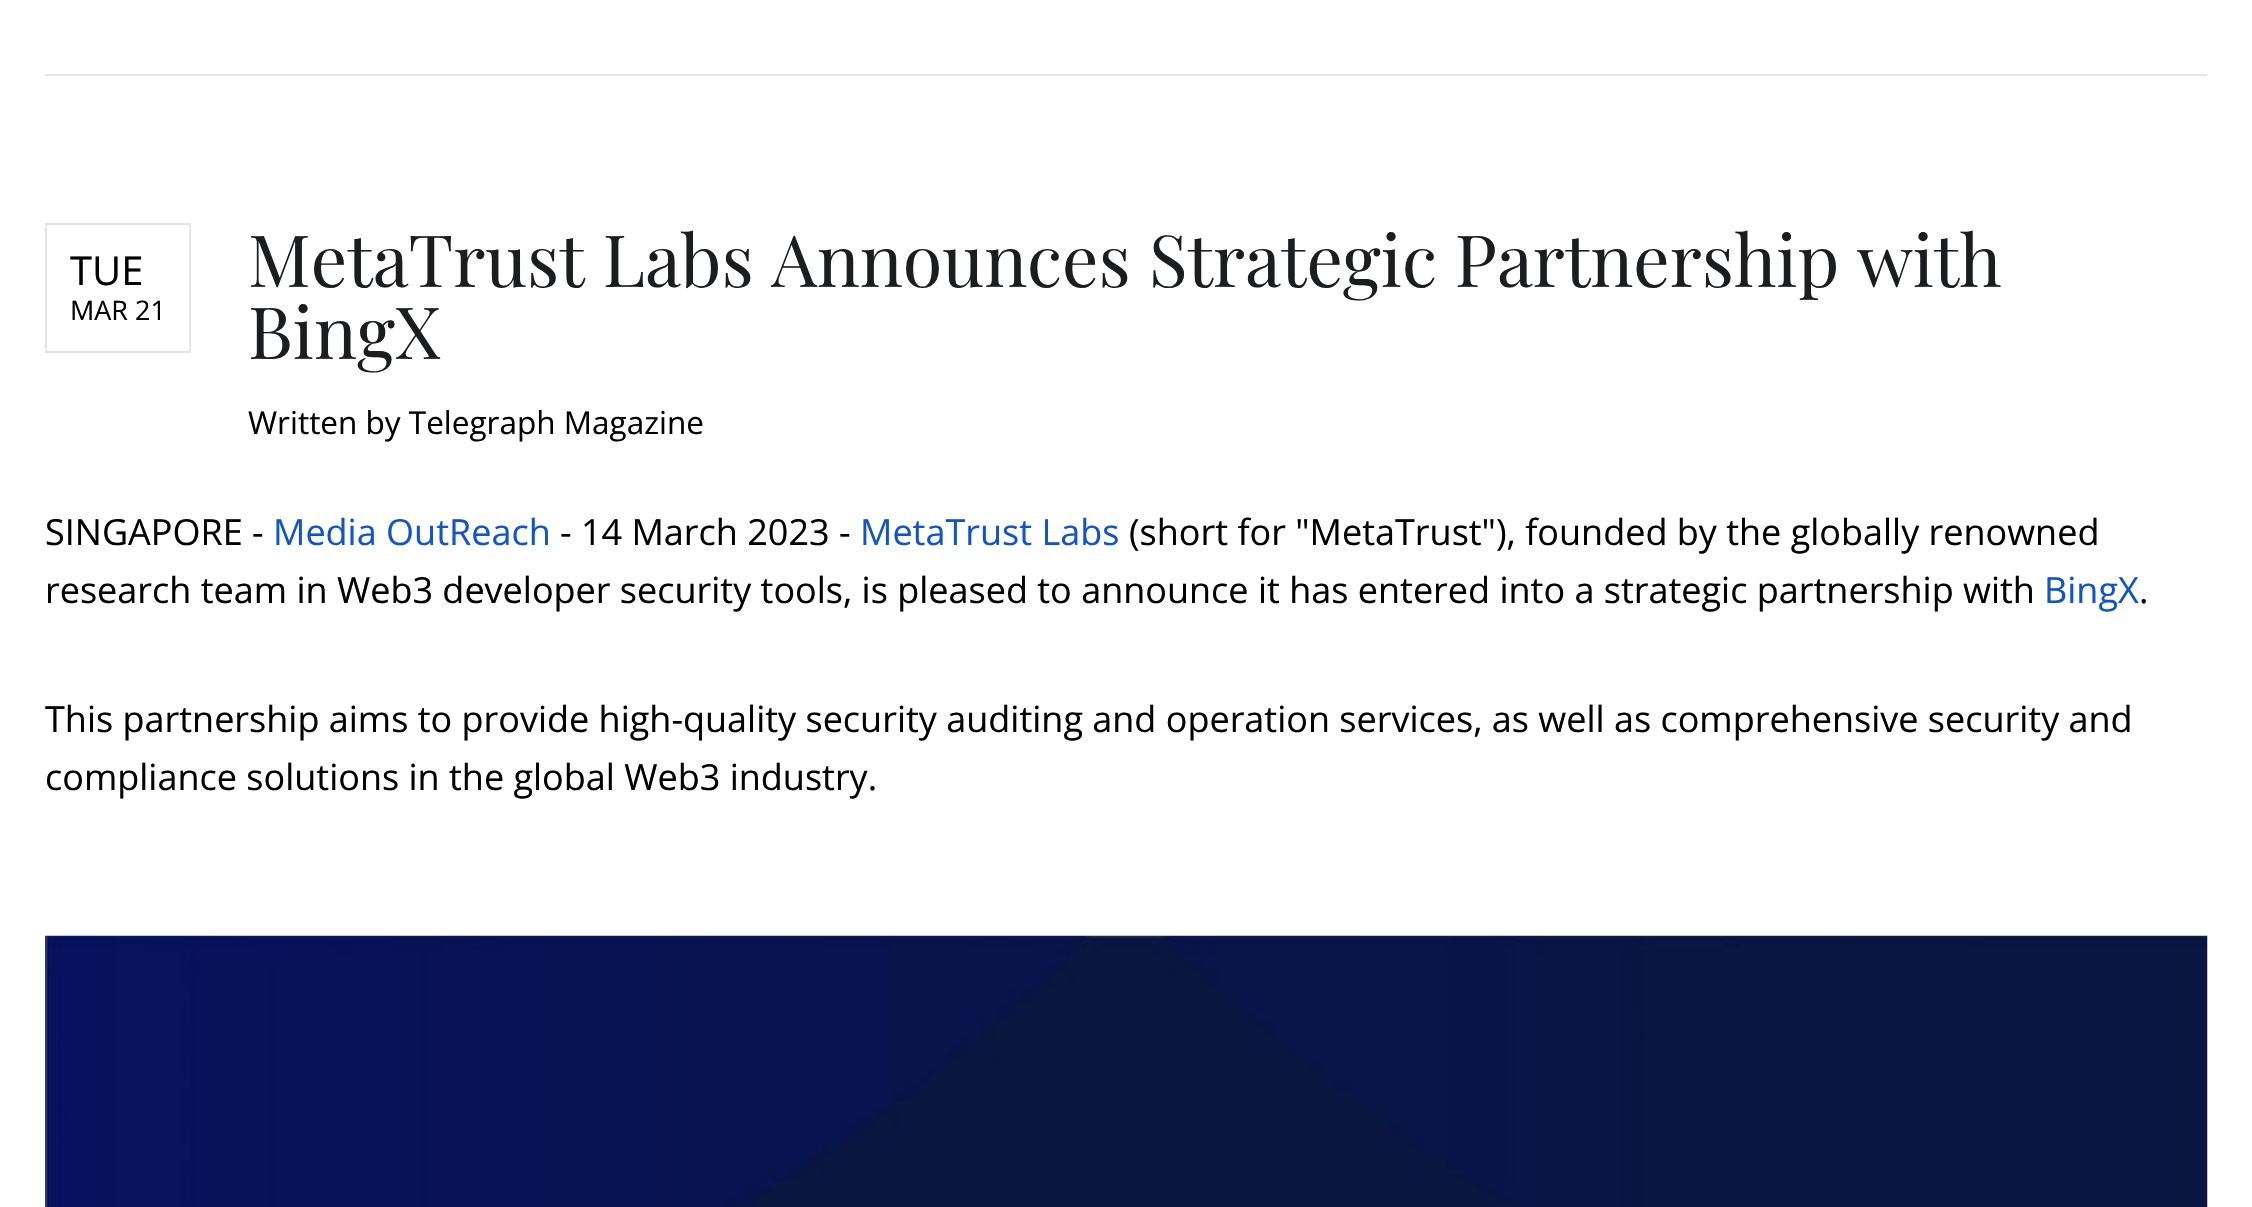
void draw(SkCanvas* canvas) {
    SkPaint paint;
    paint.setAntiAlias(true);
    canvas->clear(0xFFFFFFFF);
    paint.setColor(0xFFE5E5E5);
    canvas->drawRect(SkRect::MakeXYWH(45, 74, 2162, 2), paint);
    paint.setStyle(SkPaint::kStroke_Style);
    paint.setStrokeWidth(2);
    canvas->drawRect(SkRect::MakeXYWH(46, 224, 144, 128), paint);
    SkFont font1(fontMgr->matchFamilyStyle("Open Sans", SkFontStyle::Normal()), 40);
    font1.setSubpixel(true);
    paint.setStyle(SkPaint::kFill_Style);
    paint.setColor(0xFF000000);
    canvas->drawString("TUE", 70, 285, font1, paint);
    SkFont font2(fontMgr->matchFamilyStyle("Open Sans", SkFontStyle::Normal()), 27);
    font2.setSubpixel(true);
    canvas->drawString("MAR 21", 70, 320, font2, paint);
    SkFont font3(fontMgr->matchFamilyStyle("Playfair Display", SkFontStyle::Normal()), 72);
    font3.setSubpixel(true);
    paint.setColor(0xFF1B1D1F);
    canvas->drawString("MetaTrust Labs Announces Strategic Partnership with", 248, 287, font3, paint);
    canvas->drawString("BingX", 248, 359, font3, paint);
    SkFont font4(fontMgr->matchFamilyStyle("Open Sans", SkFontStyle::Normal()), 31.5f);
    font4.setSubpixel(true);
    paint.setColor(0xFF000000);
    canvas->drawString("Written by Telegraph Magazine", 248, 434, font4, paint);
    SkFont font5(fontMgr->matchFamilyStyle("Open Sans", SkFontStyle::Normal()), 36);
    font5.setSubpixel(true);
    canvas->drawString("SINGAPORE -", 45, 545, font5, paint);
    paint.setColor(0xFF1155CC);
    canvas->drawString("Media OutReach", 273, 545, font5, paint);
    paint.setColor(0xFF000000);
    canvas->drawString("- 14 March 2023 -", 560, 545, font5, paint);
    paint.setColor(0xFF1155CC);
    canvas->drawString("MetaTrust Labs", 860, 545, font5, paint);
    paint.setColor(0xFF000000);
    canvas->drawString("(short for \"MetaTrust\"), founded by the globally renowned", 1129, 545, font5, paint);
    canvas->drawString("research team in Web3 developer security tools, is pleased to announce it has entered into a strategic partnership with", 45, 603, font5, paint);
    paint.setColor(0xFF1155CC);
    canvas->drawString("BingX", 2044, 603, font5, paint);
    paint.setColor(0xFF000000);
    canvas->drawString(".", 2139, 603, font5, paint);
    canvas->drawString("This partnership aims to provide high-quality security auditing and operation services, as well as comprehensive security and", 45, 732, font5, paint);
    canvas->drawString("compliance solutions in the global Web3 industry.", 45, 790, font5, paint);
    canvas->drawImageRect(SkImages::DeferredFromEncodedData(SkData::MakeFromFileName("img1.png")), SkRect::MakeXYWH(45, 935, 2163, 272), SkSamplingOptions());
}
